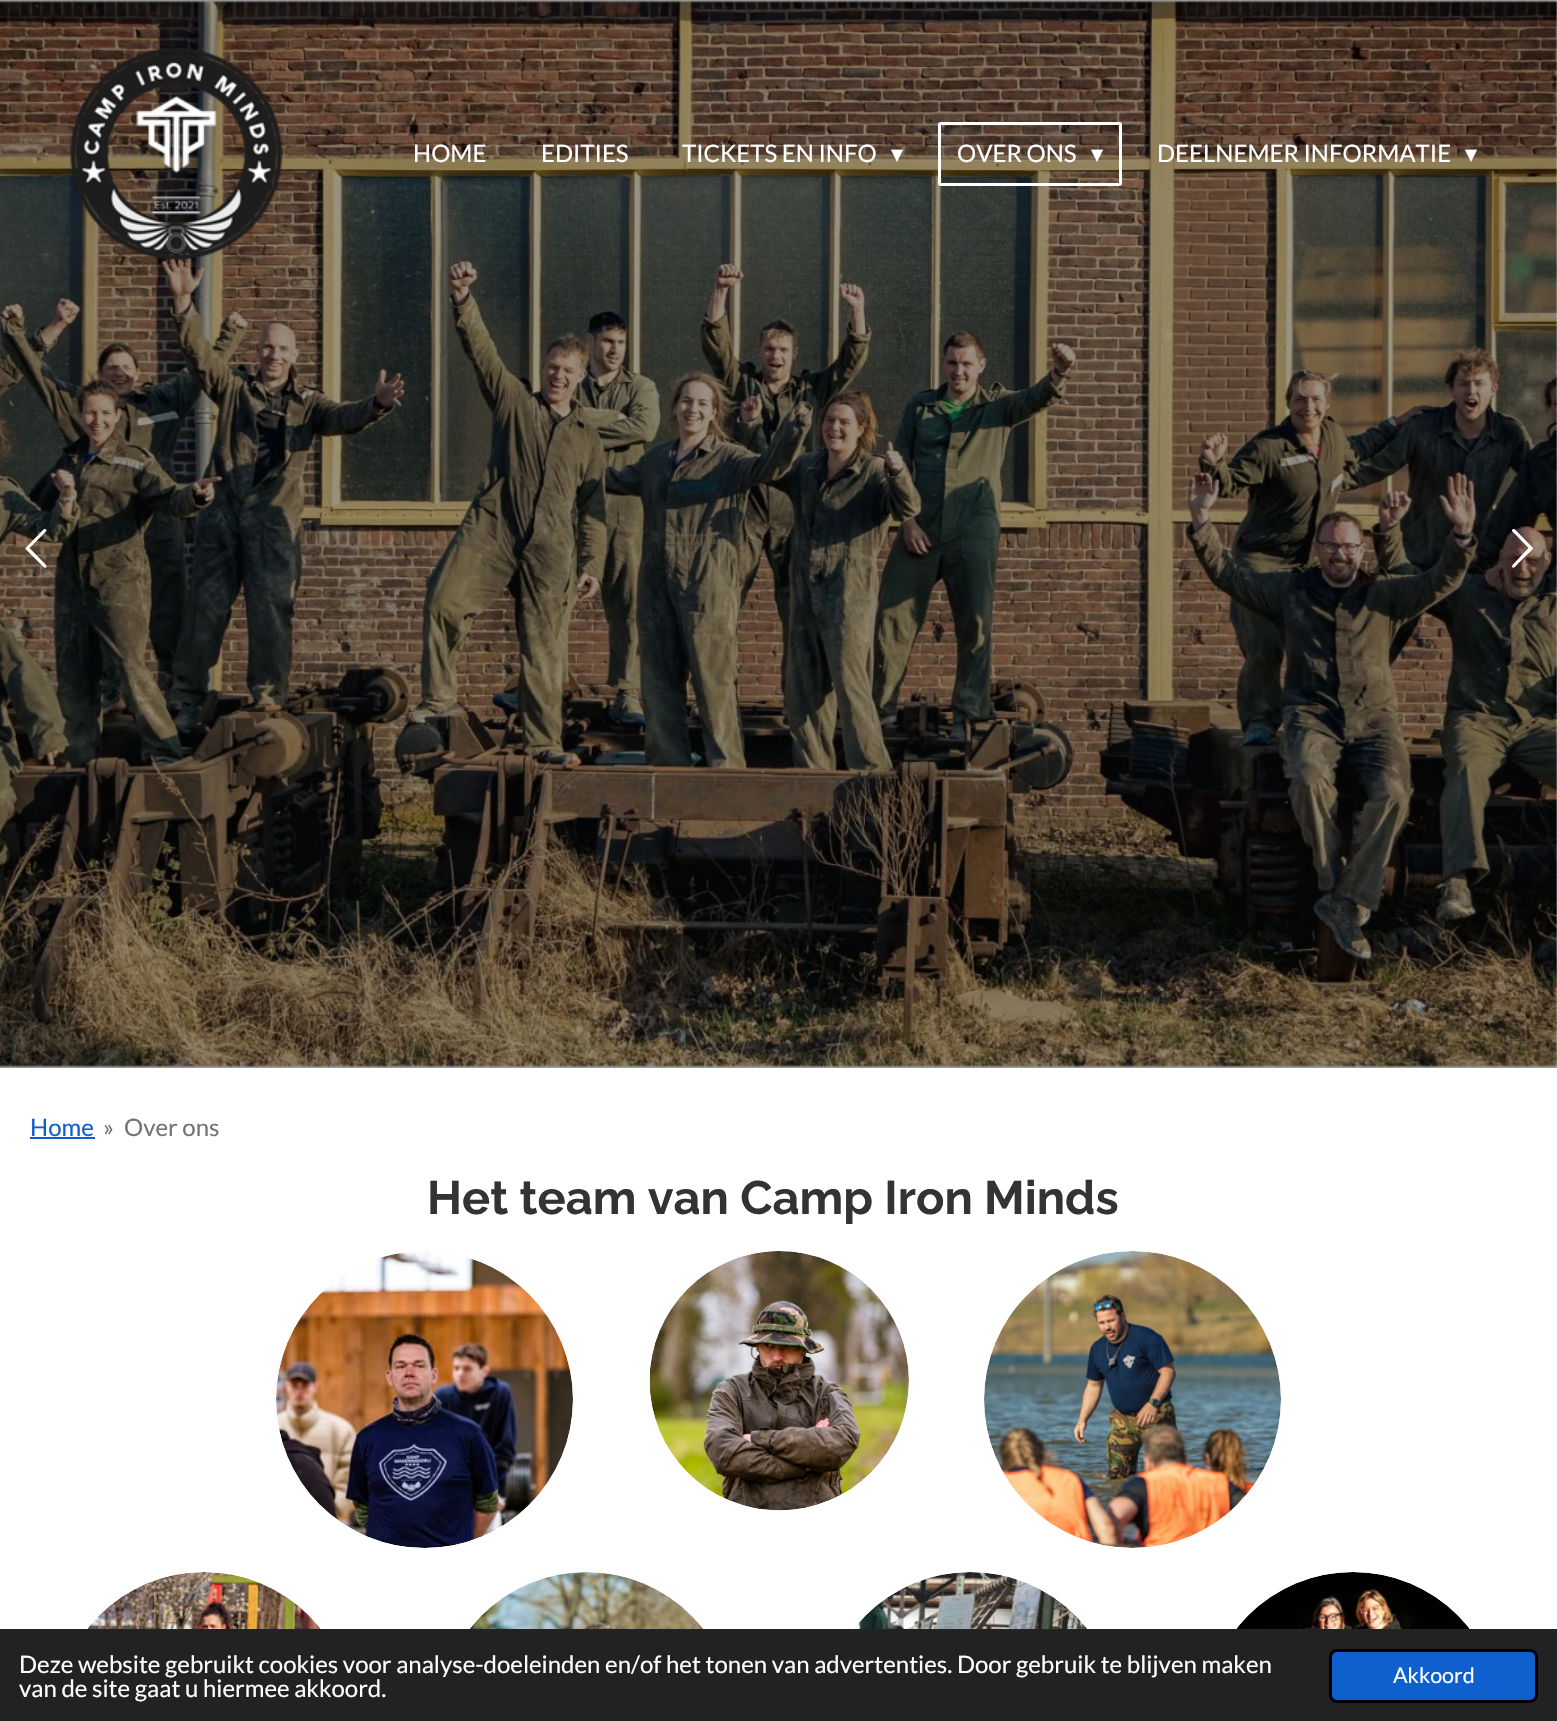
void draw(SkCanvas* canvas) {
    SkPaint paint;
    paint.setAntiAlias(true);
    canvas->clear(0xFFFFFFFF);
    canvas->drawImageRect(SkImages::DeferredFromEncodedData(SkData::MakeFromFileName("img1.png")), SkRect::MakeXYWH(0, 0, 1557, 1068), SkSamplingOptions());
    paint.setColor(0xFFFFFFFF);
    canvas->drawPath(SkPathBuilder().moveTo(46, 565).lineTo(46.5f, 566.5f).cubicTo(45.5f, 570, 41, 564.5f, 40.5f, 564).lineTo(25.5f, 549).lineTo(25.5f, 548).lineTo(26, 547.5f).lineTo(44, 529).lineTo(45, 529).cubicTo(49, 530, 43.5f, 533.5f, 43, 534.5f).lineTo(29.5f, 548).close().detach(), paint);
    canvas->drawPath(SkPathBuilder().moveTo(1512.5f, 565).lineTo(1528.5f, 548).lineTo(1515.5f, 534.5f).cubicTo(1514.5f, 533.5f, 1509.5f, 530, 1513.5f, 529).lineTo(1514.5f, 529).lineTo(1532.5f, 547.5f).lineTo(1533, 548).lineTo(1533, 549).lineTo(1517.5f, 564).cubicTo(1517.5f, 564.5f, 1513, 570, 1512, 566.5f).close().detach(), paint);
    canvas->drawImageRect(SkImages::DeferredFromEncodedData(SkData::MakeFromFileName("img2.png")), SkRect::MakeXYWH(70, 48, 213, 212), SkSamplingOptions());
    SkFont font1(fontMgr->matchFamilyStyle("Lato", SkFontStyle::Normal()), 24);
    font1.setSubpixel(true);
    canvas->drawString("HOME", 413, 162, font1, paint);
    canvas->drawString("EDITIES", 541, 162, font1, paint);
    canvas->drawString("TICKETS EN INFO", 682, 162, font1, paint);
    SkFont font2(fontMgr->matchFamilyStyle("DejaVu Sans", SkFontStyle::Normal()), 24);
    font2.setSubpixel(true);
    canvas->drawString("▾", 891, 162, font2, paint);
    paint.setStyle(SkPaint::kStroke_Style);
    paint.setStrokeWidth(3);
    canvas->drawRoundRect(SkRect::MakeXYWH(939.5f, 123.5f, 181, 61), 1.5f, 1.5f, paint);
    paint.setStyle(SkPaint::kFill_Style);
    canvas->drawString("OVER ONS", 957, 162, font1, paint);
    canvas->drawString("▾", 1091, 162, font2, paint);
    canvas->drawString("DEELNEMER INFORMATIE", 1157, 162, font1, paint);
    canvas->drawString("▾", 1465, 162, font2, paint);
    paint.setColor(0xFF0F5FCE);
    canvas->drawString("Home", 30, 1136, font1, paint);
    canvas->drawRect(SkRect::MakeXYWH(30, 1137, 65, 2), paint);
    paint.setColor(0xFF737373);
    canvas->drawString("»", 103, 1136, font1, paint);
    canvas->drawString("Over ons", 124, 1136, font1, paint);
    SkFont font3(fontMgr->matchFamilyStyle("Raleway", SkFontStyle::Bold()), 47);
    font3.setSubpixel(true);
    paint.setColor(0xFF333333);
    canvas->drawString("Het team van Camp Iron Minds", 427, 1214, font3, paint);
    canvas->drawImageRect(SkImages::DeferredFromEncodedData(SkData::MakeFromFileName("img3.png")), SkRect::MakeXYWH(276, 1251, 297, 297), SkSamplingOptions());
    canvas->drawImageRect(SkImages::DeferredFromEncodedData(SkData::MakeFromFileName("img4.png")), SkRect::MakeXYWH(649, 1251, 260, 260), SkSamplingOptions());
    canvas->drawImageRect(SkImages::DeferredFromEncodedData(SkData::MakeFromFileName("img5.png")), SkRect::MakeXYWH(984, 1251, 297, 297), SkSamplingOptions());
    canvas->drawImageRect(SkImages::DeferredFromEncodedData(SkData::MakeFromFileName("img6.png")), SkRect::MakeXYWH(87, 1572, 234, 57), SkSamplingOptions());
    canvas->drawImageRect(SkImages::DeferredFromEncodedData(SkData::MakeFromFileName("img7.png")), SkRect::MakeXYWH(470, 1572, 233, 57), SkSamplingOptions());
    canvas->drawImageRect(SkImages::DeferredFromEncodedData(SkData::MakeFromFileName("img8.png")), SkRect::MakeXYWH(854, 1572, 233, 57), SkSamplingOptions());
    canvas->drawImageRect(SkImages::DeferredFromEncodedData(SkData::MakeFromFileName("img9.png")), SkRect::MakeXYWH(1236, 1572, 234, 57), SkSamplingOptions());
    paint.setColor(0xFF222222);
    canvas->drawRect(SkRect::MakeXYWH(0, 1629, 1557, 92), paint);
    paint.setColor(0xFFFFFFFF);
    canvas->drawString("Deze website gebruikt cookies voor analyse-doeleinden en/of het tonen van advertenties. Door gebruik te blijven maken", 19, 1673, font1, paint);
    canvas->drawString("van de site gaat u hiermee akkoord.", 19, 1697, font1, paint);
    paint.setColor(0xFF0F5FCE);
    canvas->drawRoundRect(SkRect::MakeXYWH(1330.5f, 1650.5f, 206, 51), 6.5f, 6.5f, paint);
    paint.setStyle(SkPaint::kStroke_Style);
    paint.setColor(0xFF000000);
    canvas->drawRoundRect(SkRect::MakeXYWH(1330.5f, 1650.5f, 206, 51), 6.5f, 6.5f, paint);
    SkFont font4(fontMgr->matchFamilyStyle("Lato", SkFontStyle::Normal()), 21.5f);
    font4.setSubpixel(true);
    paint.setStyle(SkPaint::kFill_Style);
    paint.setColor(0xFFFFFFFF);
    canvas->drawString("Akkoord", 1393, 1683, font4, paint);
}
